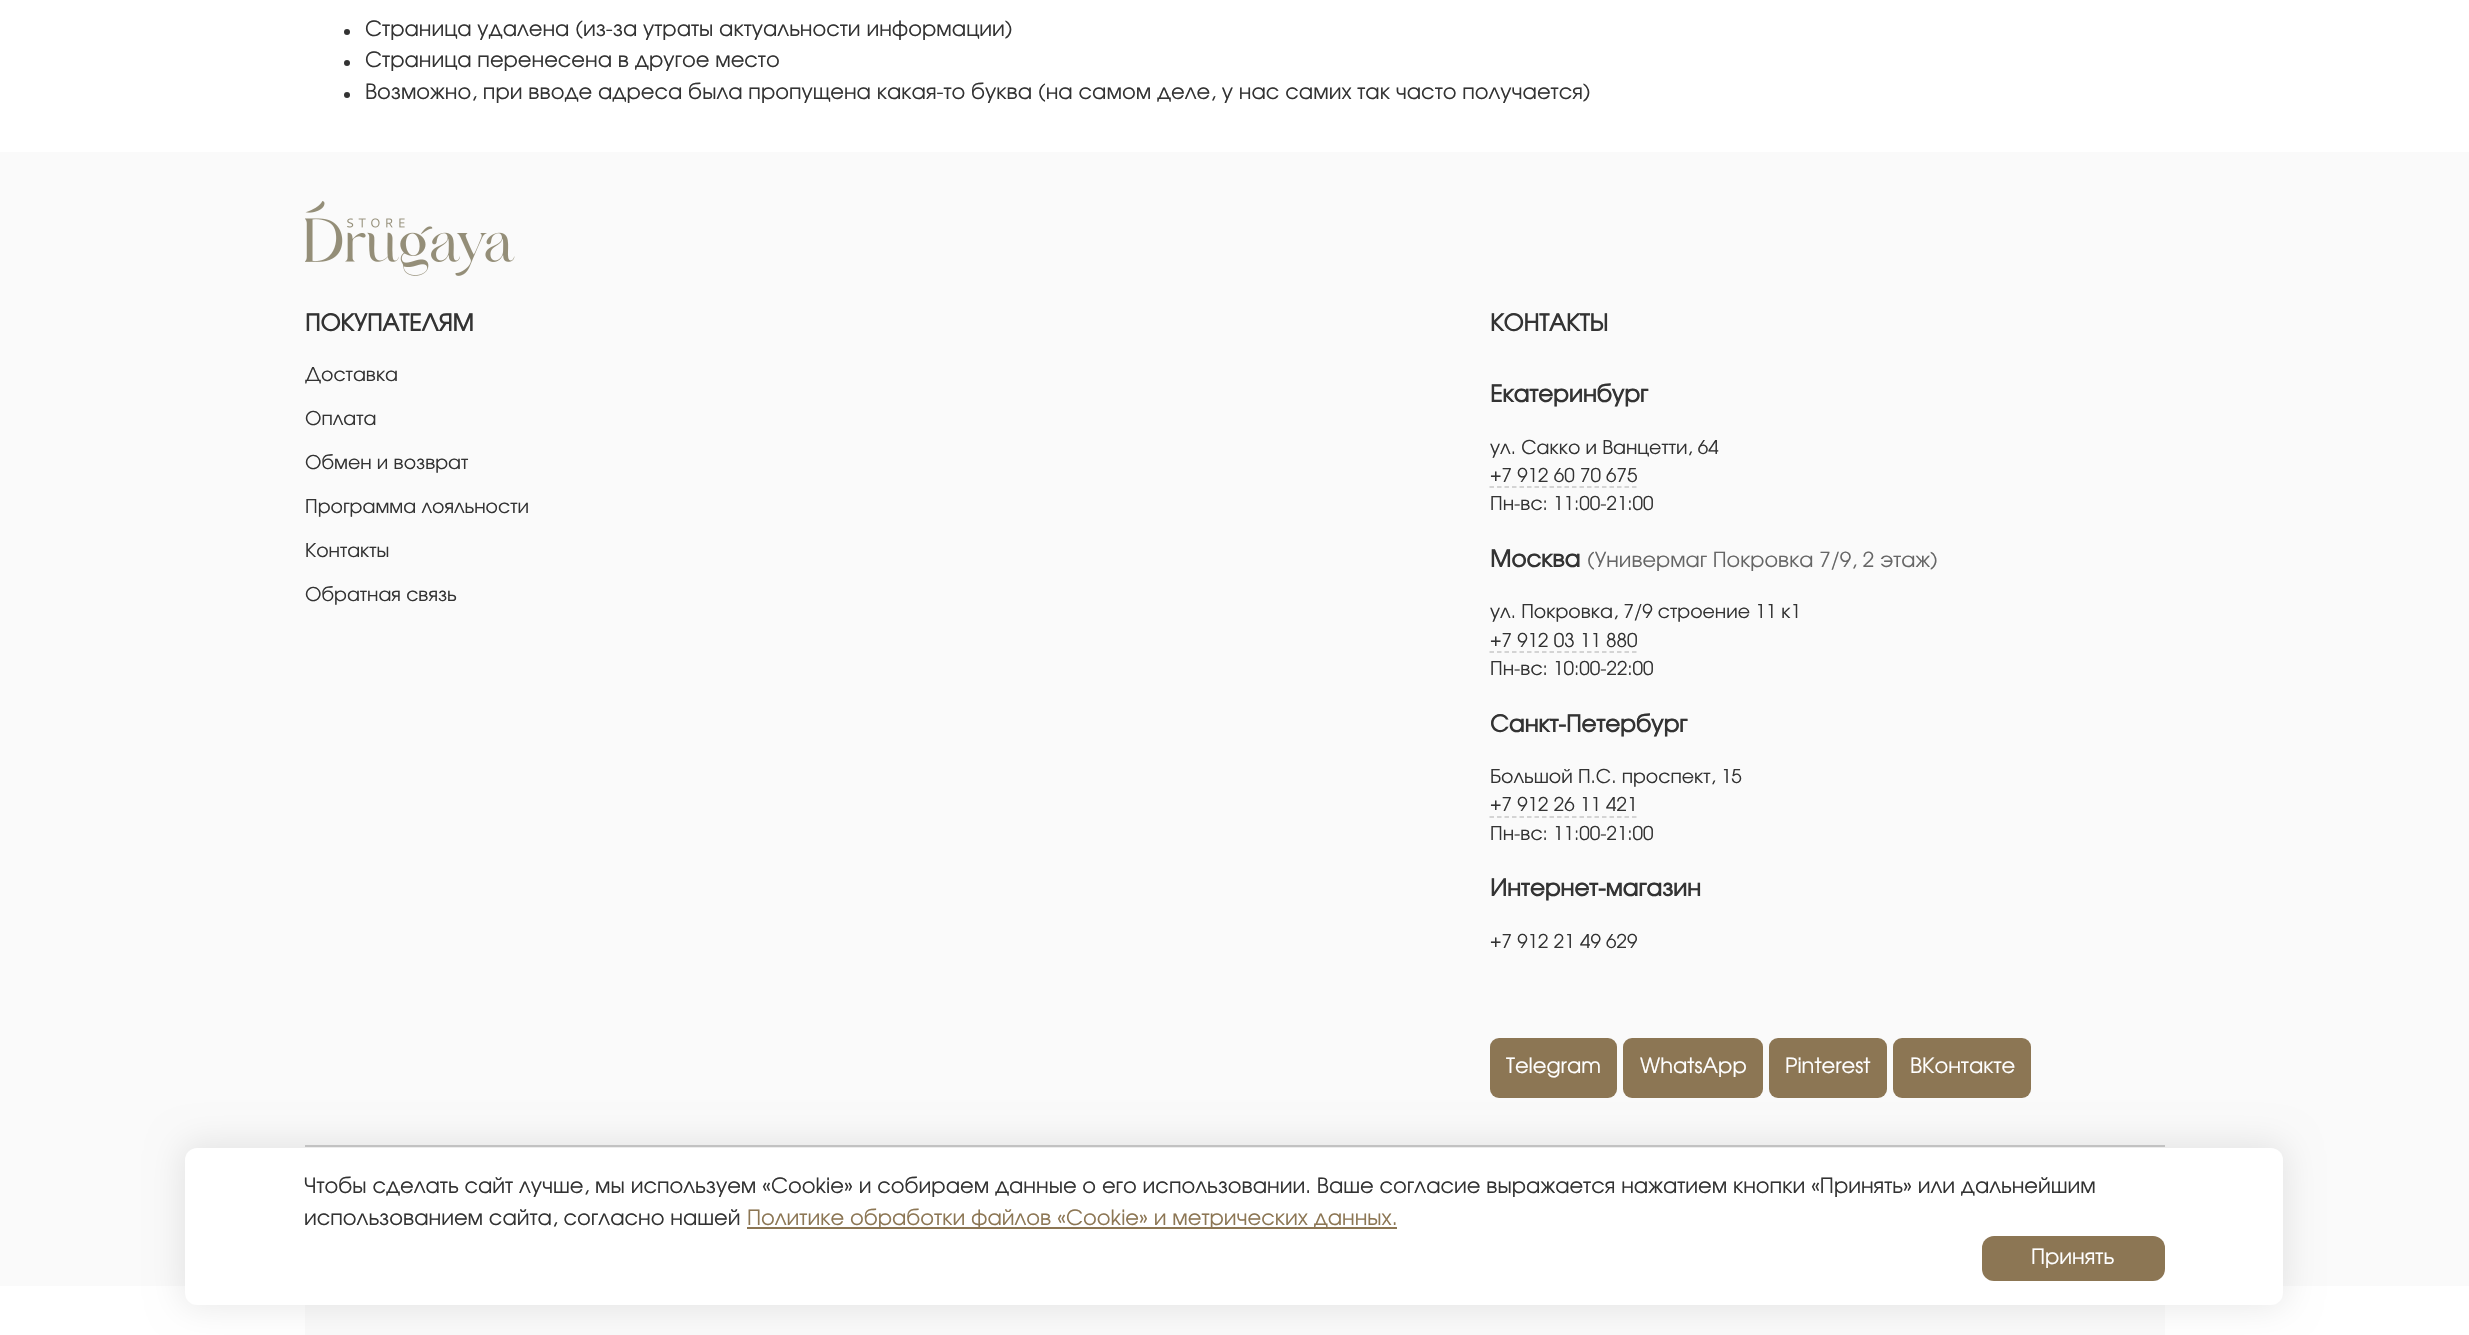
void draw(SkCanvas* canvas) {
    SkPaint paint;
    paint.setAntiAlias(true);
    canvas->clear(0xFFFFFFFF);
    paint.setColor(0xFF333333);
    canvas->drawCircle(347, 32, 3, paint);
    SkFont font1(fontMgr->matchFamilyStyle("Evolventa", SkFontStyle::Normal()), 21);
    font1.setSubpixel(true);
    canvas->drawString("Страница удалена (из-за утраты актуальности информации)", 365, 36, font1, paint);
    canvas->drawCircle(347, 63, 3, paint);
    canvas->drawString("Страница перенесена в другое место", 365, 67, font1, paint);
    canvas->drawCircle(347, 95, 3, paint);
    canvas->drawString("Возможно, при вводе адреса была пропущена какая-то буква (на самом деле, у нас самих так часто получается)", 365, 99, font1, paint);
    paint.setColor(0xFFFAFAFA);
    canvas->drawRect(SkRect::MakeXYWH(0, 152, 2469, 1134), paint);
    canvas->drawImageRect(SkImages::DeferredFromEncodedData(SkData::MakeFromFileName("img1.png")), SkRect::MakeXYWH(305, 201, 210, 75), SkSamplingOptions());
    SkFont font2(fontMgr->matchFamilyStyle("Evolventa", SkFontStyle::Bold()), 23);
    font2.setSubpixel(true);
    paint.setColor(0xFF333333);
    canvas->drawString("ПОКУПАТЕЛЯМ", 305, 331, font2, paint);
    SkFont font3(fontMgr->matchFamilyStyle("Evolventa", SkFontStyle::Normal()), 18.9f);
    font3.setSubpixel(true);
    canvas->drawString("Доставка", 305, 381, font3, paint);
    canvas->drawString("Оплата", 305, 425, font3, paint);
    canvas->drawString("Обмен и возврат", 305, 469, font3, paint);
    canvas->drawString("Программа лояльности", 305, 513, font3, paint);
    canvas->drawString("Контакты", 305, 557, font3, paint);
    canvas->drawString("Обратная связь", 305, 601, font3, paint);
    canvas->drawString("КОНТАКТЫ", 1490, 331, font2, paint);
    canvas->drawString("Екатеринбург", 1490, 402, font2, paint);
    canvas->drawString("ул. Сакко и Ванцетти, 64", 1490, 454, font3, paint);
    canvas->drawString("+7 912 60 70 675", 1490, 482, font3, paint);
    paint.setStyle(SkPaint::kStroke_Style);
    paint.setStrokeWidth(1.5f);
    paint.setColor(0xFFC8C8C8);
    paint.setPathEffect(SkDashPathEffect::Make({{4.5f, 3}}, 0));
    canvas->drawPath(SkPathBuilder().moveTo(1489.5f, 487).lineTo(1636.5f, 487).detach(), paint);
    paint.setPathEffect(nullptr);
    paint.setStyle(SkPaint::kFill_Style);
    paint.setColor(0xFF333333);
    canvas->drawString("Пн-вс: 11:00-21:00", 1490, 510, font3, paint);
    canvas->drawString("Москва", 1490, 567, font2, paint);
    SkFont font4(fontMgr->matchFamilyStyle("Evolventa", SkFontStyle::Normal()), 20.75f);
    font4.setSubpixel(true);
    paint.setColor(0xFF666666);
    canvas->drawString("(Универмаг Покровка 7/9, 2 этаж)", 1587, 567, font4, paint);
    paint.setColor(0xFF333333);
    canvas->drawString("ул. Покровка, 7/9 строение 11 к1", 1490, 618, font3, paint);
    canvas->drawString("+7 912 03 11 880", 1490, 647, font3, paint);
    paint.setStyle(SkPaint::kStroke_Style);
    paint.setColor(0xFFC8C8C8);
    paint.setPathEffect(SkDashPathEffect::Make({{4.5f, 3}}, 0));
    canvas->drawPath(SkPathBuilder().moveTo(1489.5f, 652).lineTo(1636.5f, 652).detach(), paint);
    paint.setPathEffect(nullptr);
    paint.setStyle(SkPaint::kFill_Style);
    paint.setColor(0xFF333333);
    canvas->drawString("Пн-вс: 10:00-22:00", 1490, 675, font3, paint);
    canvas->drawString("Санкт-Петербург", 1490, 732, font2, paint);
    canvas->drawString("Большой П.С. проспект, 15", 1490, 783, font3, paint);
    canvas->drawString("+7 912 26 11 421", 1490, 811, font3, paint);
    paint.setStyle(SkPaint::kStroke_Style);
    paint.setColor(0xFFC8C8C8);
    paint.setPathEffect(SkDashPathEffect::Make({{4.5f, 3}}, 0));
    canvas->drawPath(SkPathBuilder().moveTo(1489.5f, 817).lineTo(1636.5f, 817).detach(), paint);
    paint.setPathEffect(nullptr);
    paint.setStyle(SkPaint::kFill_Style);
    paint.setColor(0xFF333333);
    canvas->drawString("Пн-вс: 11:00-21:00", 1490, 840, font3, paint);
    canvas->drawString("Интернет-магазин", 1490, 896, font2, paint);
    canvas->drawString("+7 912 21 49 629", 1490, 948, font3, paint);
    paint.setColor(0xFF8C7654);
    canvas->drawRoundRect(SkRect::MakeXYWH(1490, 1038, 127, 60), 9, 9, paint);
    paint.setColor(0xFFFFFFFF);
    canvas->drawString("Telegram", 1506, 1073, font1, paint);
    paint.setColor(0xFF8C7654);
    canvas->drawRoundRect(SkRect::MakeXYWH(1623, 1038, 140, 60), 9, 9, paint);
    paint.setColor(0xFFFFFFFF);
    canvas->drawString("WhatsApp", 1640, 1073, font1, paint);
    paint.setColor(0xFF8C7654);
    canvas->drawRoundRect(SkRect::MakeXYWH(1769, 1038, 118, 60), 9, 9, paint);
    paint.setColor(0xFFFFFFFF);
    canvas->drawString("Pinterest", 1785, 1073, font1, paint);
    paint.setColor(0xFF8C7654);
    canvas->drawRoundRect(SkRect::MakeXYWH(1893, 1038, 138, 60), 9, 9, paint);
    paint.setColor(0xFFFFFFFF);
    canvas->drawString("ВКонтакте", 1910, 1073, font1, paint);
    paint.setColor(0xFFCCCCCC);
    canvas->drawRect(SkRect::MakeXYWH(305, 1145, 1860, 2), paint);
    paint.setColor(0xFFFAFAFA);
    canvas->drawRect(SkRect::MakeXYWH(305, 1305, 1860, 30), paint);
    paint.setColor(0x17000000);
    paint.setMaskFilter(SkMaskFilter::MakeBlur(kNormal_SkBlurStyle, 17));
    canvas->drawRoundRect(SkRect::MakeXYWH(182, 1143, 2104, 164), 15, 15, paint);
    paint.setMaskFilter(nullptr);
    paint.setColor(0xFFFFFFFF);
    canvas->drawRoundRect(SkRect::MakeXYWH(185, 1148, 2098, 157), 12, 12, paint);
    paint.setColor(0xFF333333);
    canvas->drawString("Чтобы сделать сайт лучше, мы используем «Cookie» и собираем данные о его использовании. Ваше согласие выражается нажатием кнопки «Принять» или дальнейшим", 304, 1193, font1, paint);
    canvas->drawString("использованием сайта, согласно нашей", 304, 1225, font1, paint);
    paint.setColor(0xFF8C7654);
    canvas->drawRect(SkRect::MakeXYWH(747, 1227, 650, 2), paint);
    canvas->drawString("Политике обработки файлов «Cookie» и метрических данных.", 747, 1225, font1, paint);
    canvas->drawRoundRect(SkRect::MakeXYWH(1982, 1236, 183, 45), 12, 12, paint);
    paint.setColor(0xFFFFFFFF);
    canvas->drawString("Принять", 2031, 1264, font1, paint);
}
